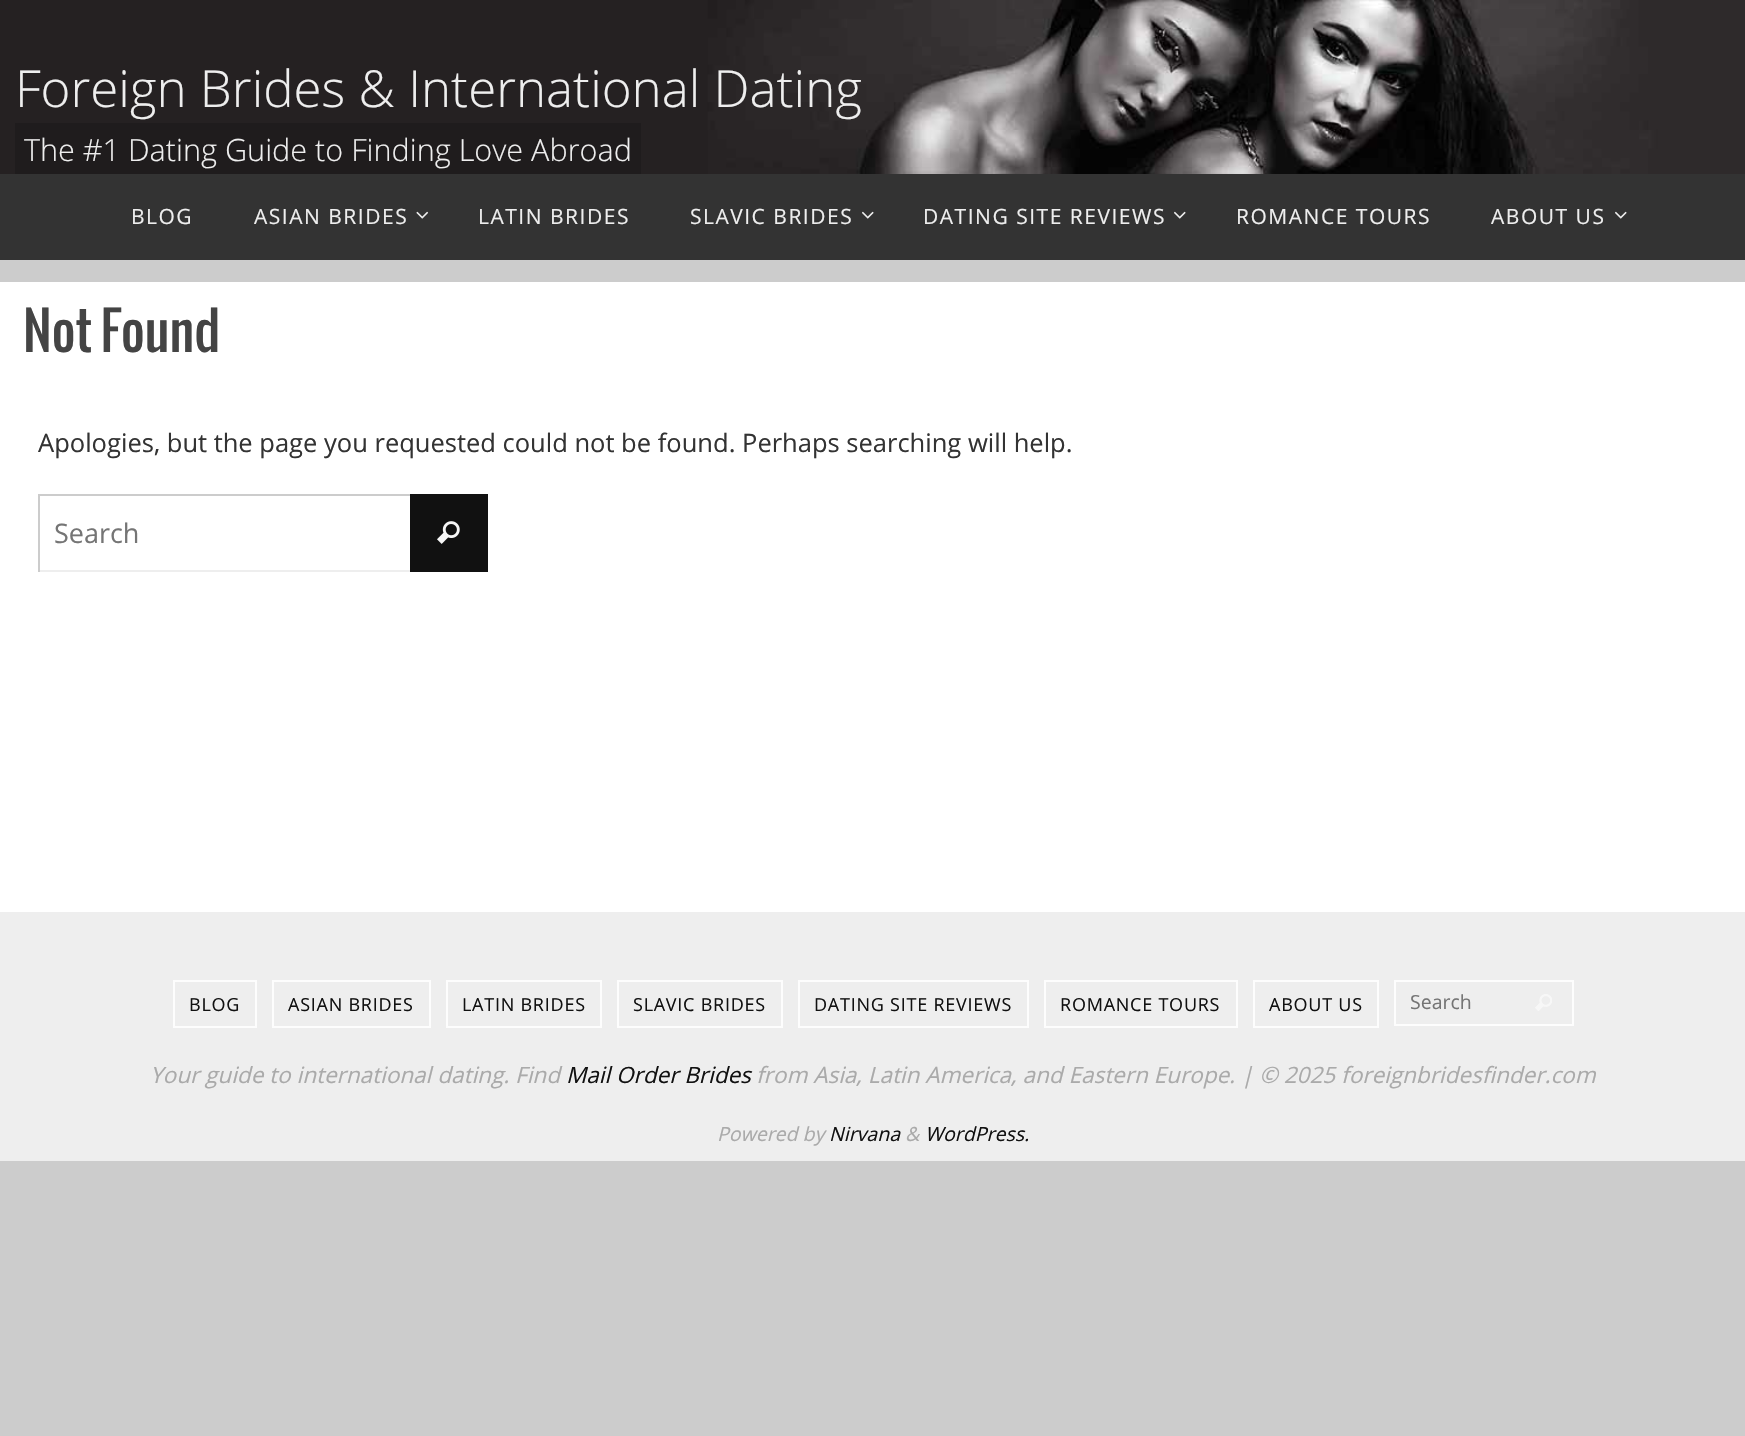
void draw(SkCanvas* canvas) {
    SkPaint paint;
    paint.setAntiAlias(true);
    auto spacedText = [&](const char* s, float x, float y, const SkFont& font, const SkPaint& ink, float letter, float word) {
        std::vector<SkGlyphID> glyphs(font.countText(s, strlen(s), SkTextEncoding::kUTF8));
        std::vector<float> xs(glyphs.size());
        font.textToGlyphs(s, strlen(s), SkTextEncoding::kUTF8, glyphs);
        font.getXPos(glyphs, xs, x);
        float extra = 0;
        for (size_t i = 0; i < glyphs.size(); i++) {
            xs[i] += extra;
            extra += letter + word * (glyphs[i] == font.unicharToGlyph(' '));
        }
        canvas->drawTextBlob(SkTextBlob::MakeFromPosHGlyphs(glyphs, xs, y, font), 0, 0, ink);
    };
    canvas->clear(0xFFCCCCCC);
    canvas->drawImageRect(SkImages::DeferredFromEncodedData(SkData::MakeFromFileName("img1.png")), SkRect::MakeXYWH(0, 0, 1745, 174), SkSamplingOptions());
    SkFont font1(fontMgr->matchFamilyStyle("Open Sans", SkFontStyle(300, SkFontStyle::kNormal_Width, SkFontStyle::kUpright_Slant)), 51);
    font1.setSubpixel(true);
    paint.setColor(0xFFEEEEEE);
    canvas->drawString("Foreign Brides & International Dating", 15, 107, font1, paint);
    paint.setColor(0xFF1F1C1D);
    canvas->drawRect(SkRect::MakeXYWH(15, 123, 626, 51), paint);
    SkFont font2(fontMgr->matchFamilyStyle("Open Sans", SkFontStyle(300, SkFontStyle::kNormal_Width, SkFontStyle::kUpright_Slant)), 30.6f);
    font2.setSubpixel(true);
    paint.setColor(0xFFEEEEEE);
    canvas->drawString("The #1 Dating Guide to Finding Love Abroad", 24, 161, font2, paint);
    paint.setColor(0xFF333333);
    canvas->drawRect(SkRect::MakeXYWH(0, 174, 1745, 86), paint);
    SkFont font3(fontMgr->matchFamilyStyle("Open Sans", SkFontStyle::Normal()), 21);
    font3.setSubpixel(true);
    paint.setColor(0xFFEEEEEE);
    spacedText("BLOG", 131, 224, font3, paint, 1.5f, 0);
    spacedText("ASIAN BRIDES", 254, 224, font3, paint, 1.5f, 0);
    canvas->drawImageRect(SkImages::DeferredFromEncodedData(SkData::MakeFromFileName("img2.png")), SkRect::MakeXYWH(416, 211, 13, 8), SkSamplingOptions());
    spacedText("LATIN BRIDES", 478, 224, font3, paint, 1.5f, 0);
    spacedText("SLAVIC BRIDES", 690, 224, font3, paint, 1.5f, 0);
    canvas->drawImageRect(SkImages::DeferredFromEncodedData(SkData::MakeFromFileName("img3.png")), SkRect::MakeXYWH(862, 211, 12, 8), SkSamplingOptions());
    spacedText("DATING SITE REVIEWS", 923, 224, font3, paint, 1.5f, 0);
    canvas->drawImageRect(SkImages::DeferredFromEncodedData(SkData::MakeFromFileName("img3.png")), SkRect::MakeXYWH(1174, 211, 12, 8), SkSamplingOptions());
    spacedText("ROMANCE TOURS", 1236, 224, font3, paint, 1.5f, 0);
    spacedText("ABOUT US", 1491, 224, font3, paint, 1.5f, 0);
    canvas->drawImageRect(SkImages::DeferredFromEncodedData(SkData::MakeFromFileName("img3.png")), SkRect::MakeXYWH(1615, 211, 12, 8), SkSamplingOptions());
    paint.setColor(0xFFFFFFFF);
    canvas->drawRect(SkRect::MakeXYWH(0, 282, 1745, 630), paint);
    SkFont font4(fontMgr->matchFamilyStyle("Oswald", SkFontStyle::Normal()), 51);
    font4.setSubpixel(true);
    paint.setColor(0xFF444444);
    canvas->drawString("Not Found", 23, 352, font4, paint);
    SkFont font5(fontMgr->matchFamilyStyle("Open Sans", SkFontStyle::Normal()), 25.5f);
    font5.setSubpixel(true);
    paint.setColor(0xFF333333);
    canvas->drawString("Apologies, but the page you requested could not be found. Perhaps searching will help.", 38, 452, font5, paint);
    paint.setColor(0xFF111111);
    canvas->drawRect(SkRect::MakeXYWH(410, 494, 78, 78), paint);
    paint.setColor(0xFFCCCCCC);
    canvas->drawRect(SkRect::MakeXYWH(38, 494, 372, 2), paint);
    paint.setColor(0xFFEEEEEE);
    canvas->drawRect(SkRect::MakeXYWH(38, 570, 372, 2), paint);
    paint.setColor(0xFFCCCCCC);
    canvas->drawRect(SkRect::MakeXYWH(38, 494, 2, 78), paint);
    SkFont font6(fontMgr->matchFamilyStyle("Open Sans", SkFontStyle::Normal()), 27);
    font6.setSubpixel(true);
    paint.setColor(0xFF757575);
    canvas->drawString("Search", 54, 543, font6, paint);
    canvas->drawImageRect(SkImages::DeferredFromEncodedData(SkData::MakeFromFileName("img4.png")), SkRect::MakeXYWH(437, 521, 23, 23), SkSamplingOptions());
    paint.setColor(0xFFEEEEEE);
    canvas->drawRect(SkRect::MakeXYWH(0, 912, 1745, 249), paint);
    paint.setStyle(SkPaint::kStroke_Style);
    paint.setStrokeWidth(2);
    paint.setColor(0xFFFDFDFD);
    canvas->drawRect(SkRect::MakeXYWH(174, 981, 82, 46), paint);
    SkFont font7(fontMgr->matchFamilyStyle("Open Sans", SkFontStyle::Normal()), 18);
    font7.setSubpixel(true);
    paint.setStyle(SkPaint::kFill_Style);
    paint.setColor(0xFF111111);
    spacedText("BLOG", 189, 1011, font7, paint, 0.75f, 0);
    paint.setStyle(SkPaint::kStroke_Style);
    paint.setColor(0xFFFDFDFD);
    canvas->drawRect(SkRect::MakeXYWH(273, 981, 157, 46), paint);
    paint.setStyle(SkPaint::kFill_Style);
    paint.setColor(0xFF111111);
    spacedText("ASIAN BRIDES", 288, 1011, font7, paint, 0.75f, 0);
    paint.setStyle(SkPaint::kStroke_Style);
    paint.setColor(0xFFFDFDFD);
    canvas->drawRect(SkRect::MakeXYWH(447, 981, 154, 46), paint);
    paint.setStyle(SkPaint::kFill_Style);
    paint.setColor(0xFF111111);
    spacedText("LATIN BRIDES", 462, 1011, font7, paint, 0.75f, 0);
    paint.setStyle(SkPaint::kStroke_Style);
    paint.setColor(0xFFFDFDFD);
    canvas->drawRect(SkRect::MakeXYWH(618, 981, 164, 46), paint);
    paint.setStyle(SkPaint::kFill_Style);
    paint.setColor(0xFF111111);
    spacedText("SLAVIC BRIDES", 633, 1011, font7, paint, 0.75f, 0);
    paint.setStyle(SkPaint::kStroke_Style);
    paint.setColor(0xFFFDFDFD);
    canvas->drawRect(SkRect::MakeXYWH(799, 981, 229, 46), paint);
    paint.setStyle(SkPaint::kFill_Style);
    paint.setColor(0xFF111111);
    spacedText("DATING SITE REVIEWS", 814, 1011, font7, paint, 0.75f, 0);
    paint.setStyle(SkPaint::kStroke_Style);
    paint.setColor(0xFFFDFDFD);
    canvas->drawRect(SkRect::MakeXYWH(1045, 981, 192, 46), paint);
    paint.setStyle(SkPaint::kFill_Style);
    paint.setColor(0xFF111111);
    spacedText("ROMANCE TOURS", 1060, 1011, font7, paint, 0.75f, 0);
    paint.setStyle(SkPaint::kStroke_Style);
    paint.setColor(0xFFFDFDFD);
    canvas->drawRect(SkRect::MakeXYWH(1254, 981, 124, 46), paint);
    paint.setStyle(SkPaint::kFill_Style);
    paint.setColor(0xFF111111);
    spacedText("ABOUT US", 1269, 1011, font7, paint, 0.75f, 0);
    paint.setStyle(SkPaint::kStroke_Style);
    paint.setColor(0xFFFDFDFD);
    canvas->drawRect(SkRect::MakeXYWH(1395, 981, 178, 44), paint);
    SkFont font8(fontMgr->matchFamilyStyle("Open Sans", SkFontStyle::Normal()), 19.5f);
    font8.setSubpixel(true);
    paint.setStyle(SkPaint::kFill_Style);
    paint.setColor(0xFF757575);
    canvas->drawString("Search", 1410, 1009, font8, paint);
    canvas->drawImageRect(SkImages::DeferredFromEncodedData(SkData::MakeFromFileName("img5.png")), SkRect::MakeXYWH(1535, 994, 17, 17), SkSamplingOptions());
    SkFont font9(fontMgr->matchFamilyStyle("Open Sans", SkFontStyle::Italic()), 22.5f);
    font9.setSubpixel(true);
    paint.setColor(0xFFAAAAAA);
    canvas->drawString("Your guide to international dating. Find", 150, 1083, font9, paint);
    paint.setColor(0xFF111111);
    canvas->drawString("Mail Order Brides", 566, 1083, font9, paint);
    paint.setColor(0xFFAAAAAA);
    canvas->drawString("from Asia, Latin America, and Eastern Europe. | © 2025 foreignbridesfinder.com", 756, 1083, font9, paint);
    SkFont font10(fontMgr->matchFamilyStyle("Open Sans", SkFontStyle::Italic()), 19.5f);
    font10.setSubpixel(true);
    canvas->drawString("Powered by", 717, 1141, font10, paint);
    paint.setColor(0xFF111111);
    canvas->drawString("Nirvana", 829, 1141, font10, paint);
    paint.setColor(0xFFAAAAAA);
    canvas->drawString("&", 905, 1141, font10, paint);
    paint.setColor(0xFF111111);
    canvas->drawString("WordPress.", 925, 1141, font10, paint);
}
